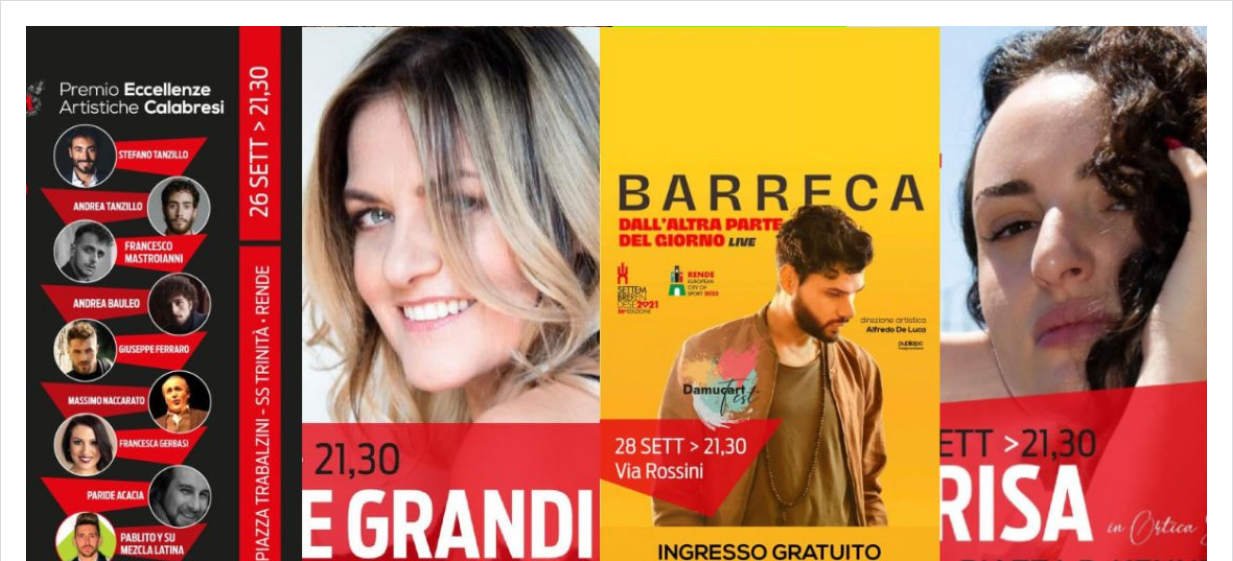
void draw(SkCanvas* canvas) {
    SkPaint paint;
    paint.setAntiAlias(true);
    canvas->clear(0xFFFFFFFF);
    paint.setStyle(SkPaint::kStroke_Style);
    paint.setStrokeWidth(1);
    paint.setColor(0xFFDCDCDE);
    canvas->drawRect(SkRect::MakeXYWH(0.5f, 0.5f, 1232, 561), paint);
    canvas->drawImageRect(SkImages::DeferredFromEncodedData(SkData::MakeFromFileName("img1.png")), SkRect::MakeXYWH(26, 26, 1181, 535), SkSamplingOptions());
}
